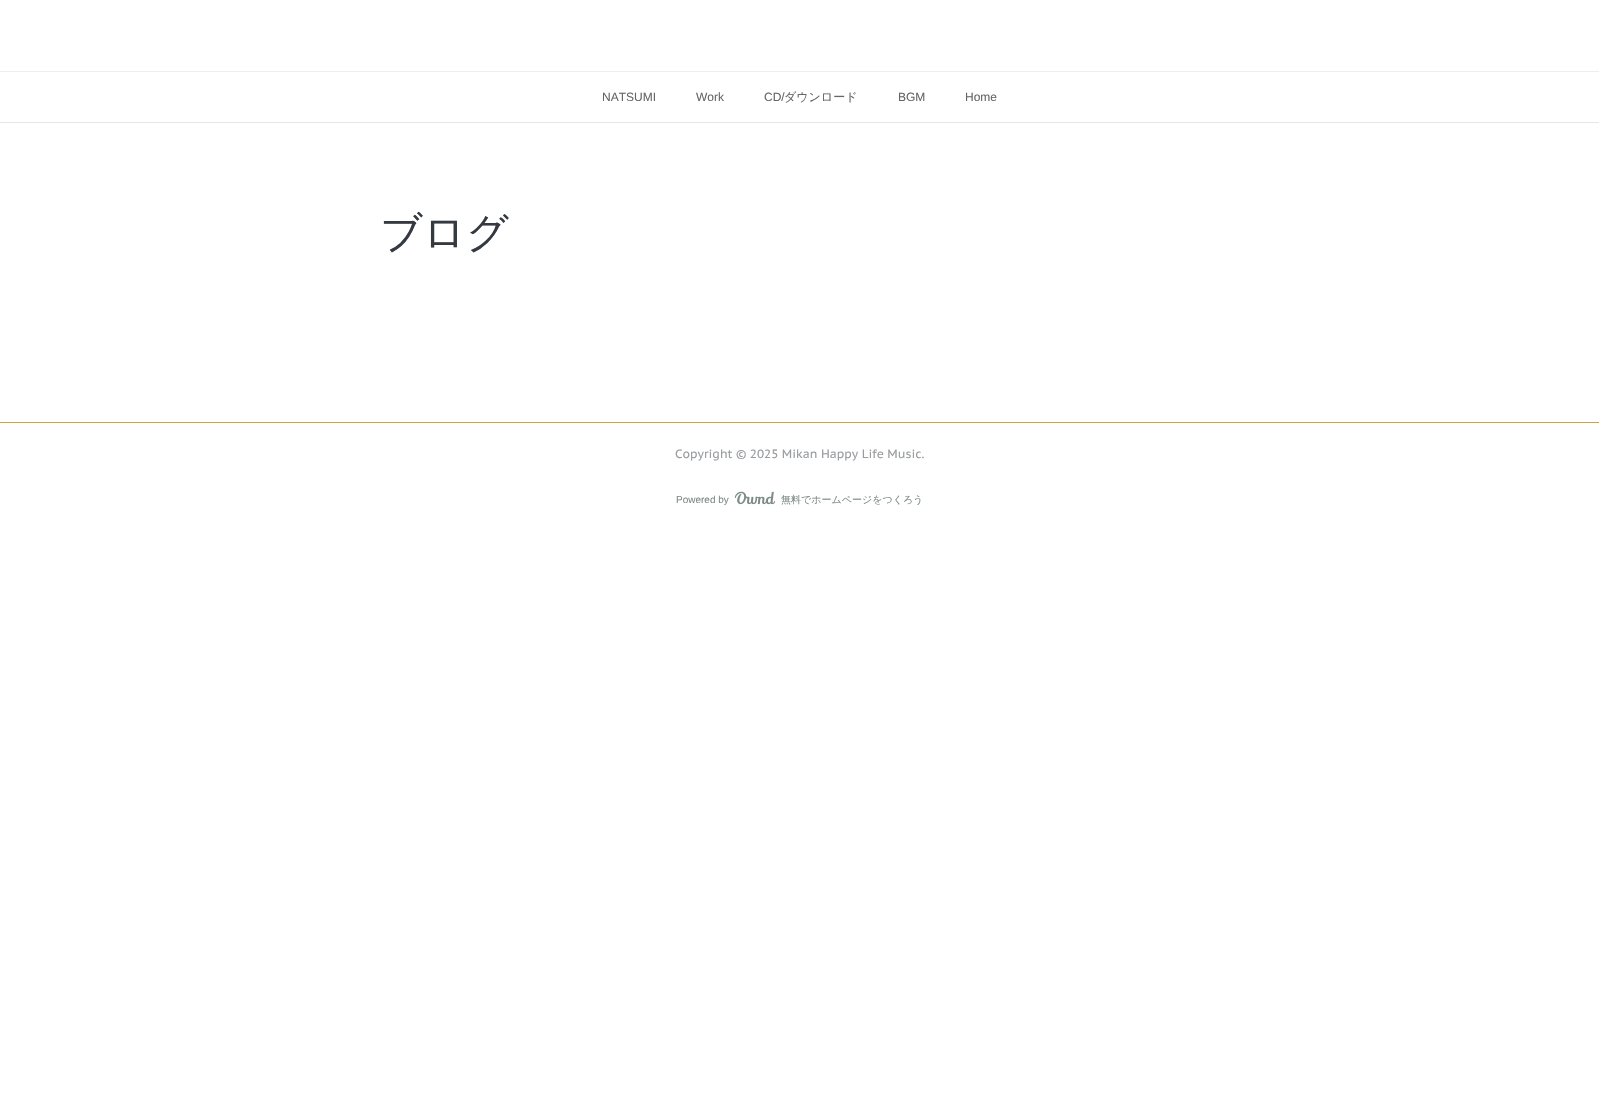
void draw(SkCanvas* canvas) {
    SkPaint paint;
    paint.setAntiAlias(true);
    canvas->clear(0xFFFFFFFF);
    paint.setColor(0xFFEEEEEE);
    canvas->drawRect(SkRect::MakeXYWH(0, 71, 1599, 1), paint);
    paint.setColor(0xFFE6E6E6);
    canvas->drawRect(SkRect::MakeXYWH(0, 122, 1599, 1), paint);
    SkFont font1(fontMgr->matchFamilyStyle("Liberation Sans", SkFontStyle::Normal()), 12);
    font1.setSubpixel(true);
    paint.setColor(0xFF666666);
    canvas->drawString("NATSUMI", 602, 101, font1, paint);
    canvas->drawString("Work", 696, 101, font1, paint);
    canvas->drawString("CD/", 764, 101, font1, paint);
    SkFont font2(fontMgr->matchFamilyStyle("WenQuanYi Zen Hei", SkFontStyle(500, SkFontStyle::kNormal_Width, SkFontStyle::kUpright_Slant)), 12);
    font2.setSubpixel(true);
    canvas->drawString("ダウンロード", 784, 101, font2, paint);
    canvas->drawString("BGM", 898, 101, font1, paint);
    canvas->drawString("Home", 965, 101, font1, paint);
    SkFont font3(fontMgr->matchFamilyStyle("WenQuanYi Zen Hei", SkFontStyle(500, SkFontStyle::kNormal_Width, SkFontStyle::kUpright_Slant)), 42);
    font3.setSubpixel(true);
    paint.setColor(0xFF353A40);
    canvas->drawString("ブログ", 380, 247, font3, paint);
    paint.setColor(0xFFC7A540);
    canvas->drawRect(SkRect::MakeXYWH(0, 422, 1599, 1), paint);
    SkFont font4(fontMgr->matchFamilyStyle("PT Sans Caption", SkFontStyle::Normal()), 12);
    font4.setSubpixel(true);
    paint.setColor(0xFF9A9DA0);
    canvas->drawString("Copyright © 2025 Mikan Happy Life Music.", 675, 458, font4, paint);
    SkFont font5(fontMgr->matchFamilyStyle("Liberation Sans", SkFontStyle::Normal()), 10);
    font5.setSubpixel(true);
    paint.setColor(0xFF7D8B88);
    canvas->drawString("Powered by", 676, 503, font5, paint);
    canvas->drawImageRect(SkImages::DeferredFromEncodedData(SkData::MakeFromFileName("img1.png")), SkRect::MakeXYWH(734, 491, 42, 14), SkSamplingOptions());
    SkFont font6(fontMgr->matchFamilyStyle("WenQuanYi Zen Hei", SkFontStyle(500, SkFontStyle::kNormal_Width, SkFontStyle::kUpright_Slant)), 10);
    font6.setSubpixel(true);
    canvas->drawString("無料でホームページをつくろう", 781, 503, font6, paint);
}
